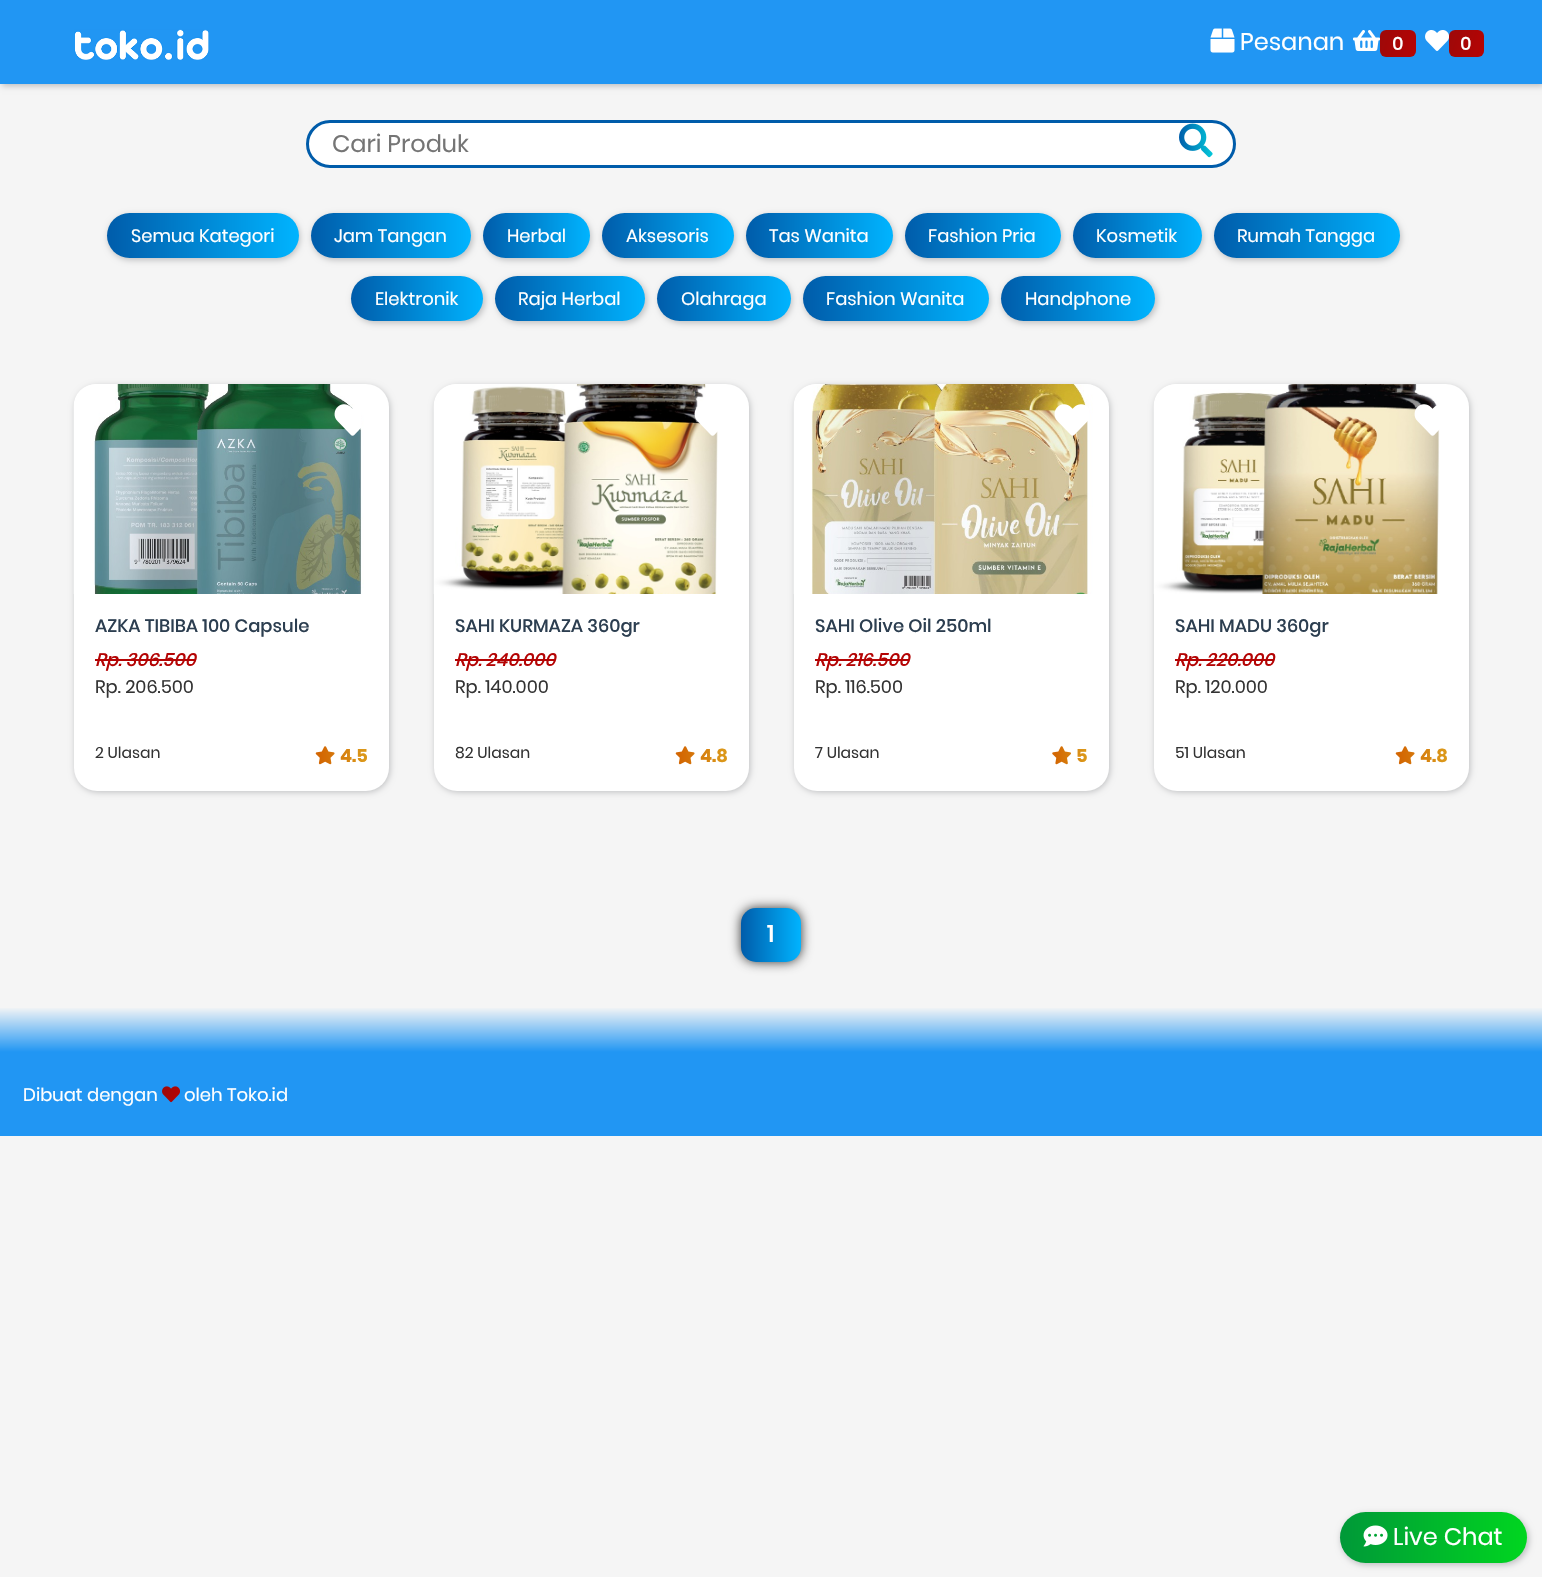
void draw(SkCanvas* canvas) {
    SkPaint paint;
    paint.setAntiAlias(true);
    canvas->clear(0xFFF5F5F5);
    paint.setColor(0xFFBDBEC0);
    paint.setMaskFilter(SkMaskFilter::MakeBlur(kNormal_SkBlurStyle, 3));
    canvas->drawRect(SkRect::MakeXYWH(2, 2, 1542, 84), paint);
    paint.setMaskFilter(nullptr);
    paint.setColor(0xFF2196F3);
    canvas->drawRect(SkRect::MakeXYWH(0, 0, 1542, 84), paint);
    canvas->drawImageRect(SkImages::DeferredFromEncodedData(SkData::MakeFromFileName("img1.png")), SkRect::MakeXYWH(74, 29, 135, 31), SkSamplingOptions());
    canvas->drawImageRect(SkImages::DeferredFromEncodedData(SkData::MakeFromFileName("img2.png")), SkRect::MakeXYWH(1210, 28, 25, 25), SkSamplingOptions());
    SkFont font1(fontMgr->matchFamilyStyle("Poppins", SkFontStyle::Normal()), 24);
    font1.setSubpixel(true);
    paint.setColor(0xFFFFFFFF);
    canvas->drawString("Pesanan", 1240, 50, font1, paint);
    canvas->drawImageRect(SkImages::DeferredFromEncodedData(SkData::MakeFromFileName("img3.png")), SkRect::MakeXYWH(1353, 30, 27, 21), SkSamplingOptions());
    {
        const SkColor colors[] = {0xFFA00808, 0xFFB40404};
        const float stops[] = {0.11f, 0.91f};
        const SkPoint ends[] = {{1378, 37}, {1418, 50}};
        paint.setShader(SkGradientShader::MakeLinear(ends, colors, stops, 2, SkTileMode::kClamp));
        paint.setAlpha(255);
    }
    canvas->drawRoundRect(SkRect::MakeXYWH(1380, 30, 36, 27), 6, 6, paint);
    SkFont font2(fontMgr->matchFamilyStyle("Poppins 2", SkFontStyle::Bold()), 18);
    font2.setSubpixel(true);
    paint.setShader(nullptr);
    paint.setColor(0xFFFFFFFF);
    canvas->drawString("0", 1392, 50, font2, paint);
    canvas->drawImageRect(SkImages::DeferredFromEncodedData(SkData::MakeFromFileName("img4.png")), SkRect::MakeXYWH(1425, 30, 24, 21), SkSamplingOptions());
    {
        const SkColor colors[] = {0xFFA00808, 0xFFB40404};
        const float stops[] = {0.11f, 0.91f};
        const SkPoint ends[] = {{1447, 37}, {1486, 50}};
        paint.setShader(SkGradientShader::MakeLinear(ends, colors, stops, 2, SkTileMode::kClamp));
        paint.setAlpha(255);
    }
    canvas->drawRoundRect(SkRect::MakeXYWH(1449, 30, 35, 27), 6, 6, paint);
    paint.setShader(nullptr);
    paint.setColor(0xFFFFFFFF);
    canvas->drawString("0", 1460, 50, font2, paint);
    canvas->drawRoundRect(SkRect::MakeXYWH(307.5f, 121.5f, 927, 45), 22.5f, 22.5f, paint);
    paint.setStyle(SkPaint::kStroke_Style);
    paint.setStrokeWidth(3);
    paint.setColor(0xFF005CAA);
    canvas->drawRoundRect(SkRect::MakeXYWH(307.5f, 121.5f, 927, 45), 22.5f, 22.5f, paint);
    paint.setStyle(SkPaint::kFill_Style);
    paint.setColor(0xFF757575);
    canvas->drawString("Cari Produk", 332, 152, font1, paint);
    canvas->drawImageRect(SkImages::DeferredFromEncodedData(SkData::MakeFromFileName("img5.png")), SkRect::MakeXYWH(1179, 123, 34, 35), SkSamplingOptions());
    paint.setColor(0xFFBDBEC0);
    paint.setMaskFilter(SkMaskFilter::MakeBlur(kNormal_SkBlurStyle, 3));
    canvas->drawRoundRect(SkRect::MakeXYWH(108, 215, 192, 45), 22.5f, 22.5f, paint);
    paint.setMaskFilter(nullptr);
    {
        const SkColor colors[] = {0xFF005CAA, 0xFF00B4FF};
        const float stops[] = {0, 1};
        const SkPoint ends[] = {{107, 236}, {299, 236}};
        paint.setShader(SkGradientShader::MakeLinear(ends, colors, stops, 2, SkTileMode::kClamp));
        paint.setAlpha(255);
    }
    canvas->drawRoundRect(SkRect::MakeXYWH(107, 213, 192, 45), 22.5f, 22.5f, paint);
    SkFont font3(fontMgr->matchFamilyStyle("Poppins", SkFontStyle::Normal()), 18);
    font3.setSubpixel(true);
    paint.setShader(nullptr);
    paint.setColor(0xFFFFFFFF);
    canvas->drawString("Semua Kategori", 131, 242, font3, paint);
    paint.setColor(0xFFBDBEC0);
    paint.setMaskFilter(SkMaskFilter::MakeBlur(kNormal_SkBlurStyle, 3));
    canvas->drawRoundRect(SkRect::MakeXYWH(312, 215, 161, 45), 22.5f, 22.5f, paint);
    paint.setMaskFilter(nullptr);
    {
        const SkColor colors[] = {0xFF005CAA, 0xFF00B4FF};
        const float stops[] = {0, 1};
        const SkPoint ends[] = {{311, 236}, {471, 236}};
        paint.setShader(SkGradientShader::MakeLinear(ends, colors, stops, 2, SkTileMode::kClamp));
        paint.setAlpha(255);
    }
    canvas->drawRoundRect(SkRect::MakeXYWH(311, 213, 160, 45), 22.5f, 22.5f, paint);
    paint.setShader(nullptr);
    paint.setColor(0xFFFFFFFF);
    canvas->drawString("Jam Tangan", 334, 242, font3, paint);
    paint.setColor(0xFFBDBEC0);
    paint.setMaskFilter(SkMaskFilter::MakeBlur(kNormal_SkBlurStyle, 3));
    canvas->drawRoundRect(SkRect::MakeXYWH(485, 215, 106, 45), 22.5f, 22.5f, paint);
    paint.setMaskFilter(nullptr);
    {
        const SkColor colors[] = {0xFF005CAA, 0xFF00B4FF};
        const float stops[] = {0, 1};
        const SkPoint ends[] = {{483, 236}, {590, 236}};
        paint.setShader(SkGradientShader::MakeLinear(ends, colors, stops, 2, SkTileMode::kClamp));
        paint.setAlpha(255);
    }
    canvas->drawRoundRect(SkRect::MakeXYWH(483, 213, 107, 45), 22.5f, 22.5f, paint);
    paint.setShader(nullptr);
    paint.setColor(0xFFFFFFFF);
    canvas->drawString("Herbal", 507, 242, font3, paint);
    paint.setColor(0xFFBDBEC0);
    paint.setMaskFilter(SkMaskFilter::MakeBlur(kNormal_SkBlurStyle, 3));
    canvas->drawRoundRect(SkRect::MakeXYWH(603, 215, 132, 45), 22.5f, 22.5f, paint);
    paint.setMaskFilter(nullptr);
    {
        const SkColor colors[] = {0xFF005CAA, 0xFF00B4FF};
        const float stops[] = {0, 1};
        const SkPoint ends[] = {{602, 236}, {734, 236}};
        paint.setShader(SkGradientShader::MakeLinear(ends, colors, stops, 2, SkTileMode::kClamp));
        paint.setAlpha(255);
    }
    canvas->drawRoundRect(SkRect::MakeXYWH(602, 213, 132, 45), 22.5f, 22.5f, paint);
    paint.setShader(nullptr);
    paint.setColor(0xFFFFFFFF);
    canvas->drawString("Aksesoris", 626, 242, font3, paint);
    paint.setColor(0xFFBDBEC0);
    paint.setMaskFilter(SkMaskFilter::MakeBlur(kNormal_SkBlurStyle, 3));
    canvas->drawRoundRect(SkRect::MakeXYWH(747, 215, 147, 45), 22.5f, 22.5f, paint);
    paint.setMaskFilter(nullptr);
    {
        const SkColor colors[] = {0xFF005CAA, 0xFF00B4FF};
        const float stops[] = {0, 1};
        const SkPoint ends[] = {{746, 236}, {893, 236}};
        paint.setShader(SkGradientShader::MakeLinear(ends, colors, stops, 2, SkTileMode::kClamp));
        paint.setAlpha(255);
    }
    canvas->drawRoundRect(SkRect::MakeXYWH(746, 213, 147, 45), 22.5f, 22.5f, paint);
    paint.setShader(nullptr);
    paint.setColor(0xFFFFFFFF);
    canvas->drawString("Tas Wanita", 769, 242, font3, paint);
    paint.setColor(0xFFBDBEC0);
    paint.setMaskFilter(SkMaskFilter::MakeBlur(kNormal_SkBlurStyle, 3));
    canvas->drawRoundRect(SkRect::MakeXYWH(906, 215, 156, 45), 22.5f, 22.5f, paint);
    paint.setMaskFilter(nullptr);
    {
        const SkColor colors[] = {0xFF005CAA, 0xFF00B4FF};
        const float stops[] = {0, 1};
        const SkPoint ends[] = {{905, 236}, {1061, 236}};
        paint.setShader(SkGradientShader::MakeLinear(ends, colors, stops, 2, SkTileMode::kClamp));
        paint.setAlpha(255);
    }
    canvas->drawRoundRect(SkRect::MakeXYWH(905, 213, 156, 45), 22.5f, 22.5f, paint);
    paint.setShader(nullptr);
    paint.setColor(0xFFFFFFFF);
    canvas->drawString("Fashion Pria", 928, 242, font3, paint);
    paint.setColor(0xFFBDBEC0);
    paint.setMaskFilter(SkMaskFilter::MakeBlur(kNormal_SkBlurStyle, 3));
    canvas->drawRoundRect(SkRect::MakeXYWH(1074, 215, 129, 45), 22.5f, 22.5f, paint);
    paint.setMaskFilter(nullptr);
    {
        const SkColor colors[] = {0xFF005CAA, 0xFF00B4FF};
        const float stops[] = {0, 1};
        const SkPoint ends[] = {{1073, 236}, {1202, 236}};
        paint.setShader(SkGradientShader::MakeLinear(ends, colors, stops, 2, SkTileMode::kClamp));
        paint.setAlpha(255);
    }
    canvas->drawRoundRect(SkRect::MakeXYWH(1073, 213, 129, 45), 22.5f, 22.5f, paint);
    paint.setShader(nullptr);
    paint.setColor(0xFFFFFFFF);
    canvas->drawString("Kosmetik", 1096, 242, font3, paint);
    paint.setColor(0xFFBDBEC0);
    paint.setMaskFilter(SkMaskFilter::MakeBlur(kNormal_SkBlurStyle, 3));
    canvas->drawRoundRect(SkRect::MakeXYWH(1215, 215, 186, 45), 22.5f, 22.5f, paint);
    paint.setMaskFilter(nullptr);
    {
        const SkColor colors[] = {0xFF005CAA, 0xFF00B4FF};
        const float stops[] = {0, 1};
        const SkPoint ends[] = {{1214, 236}, {1400, 236}};
        paint.setShader(SkGradientShader::MakeLinear(ends, colors, stops, 2, SkTileMode::kClamp));
        paint.setAlpha(255);
    }
    canvas->drawRoundRect(SkRect::MakeXYWH(1214, 213, 186, 45), 22.5f, 22.5f, paint);
    paint.setShader(nullptr);
    paint.setColor(0xFFFFFFFF);
    canvas->drawString("Rumah Tangga", 1237, 242, font3, paint);
    paint.setColor(0xFFBDBEC0);
    paint.setMaskFilter(SkMaskFilter::MakeBlur(kNormal_SkBlurStyle, 3));
    canvas->drawRoundRect(SkRect::MakeXYWH(353, 278, 132, 45), 22.5f, 22.5f, paint);
    paint.setMaskFilter(nullptr);
    {
        const SkColor colors[] = {0xFF005CAA, 0xFF00B4FF};
        const float stops[] = {0, 1};
        const SkPoint ends[] = {{351, 299}, {483, 299}};
        paint.setShader(SkGradientShader::MakeLinear(ends, colors, stops, 2, SkTileMode::kClamp));
        paint.setAlpha(255);
    }
    canvas->drawRoundRect(SkRect::MakeXYWH(351, 276, 132, 45), 22.5f, 22.5f, paint);
    paint.setShader(nullptr);
    paint.setColor(0xFFFFFFFF);
    canvas->drawString("Elektronik", 375, 305, font3, paint);
    paint.setColor(0xFFBDBEC0);
    paint.setMaskFilter(SkMaskFilter::MakeBlur(kNormal_SkBlurStyle, 3));
    canvas->drawRoundRect(SkRect::MakeXYWH(497, 278, 150, 45), 22.5f, 22.5f, paint);
    paint.setMaskFilter(nullptr);
    {
        const SkColor colors[] = {0xFF005CAA, 0xFF00B4FF};
        const float stops[] = {0, 1};
        const SkPoint ends[] = {{495, 299}, {645, 299}};
        paint.setShader(SkGradientShader::MakeLinear(ends, colors, stops, 2, SkTileMode::kClamp));
        paint.setAlpha(255);
    }
    canvas->drawRoundRect(SkRect::MakeXYWH(495, 276, 150, 45), 22.5f, 22.5f, paint);
    paint.setShader(nullptr);
    paint.setColor(0xFFFFFFFF);
    canvas->drawString("Raja Herbal", 518, 305, font3, paint);
    paint.setColor(0xFFBDBEC0);
    paint.setMaskFilter(SkMaskFilter::MakeBlur(kNormal_SkBlurStyle, 3));
    canvas->drawRoundRect(SkRect::MakeXYWH(659, 278, 133, 45), 22.5f, 22.5f, paint);
    paint.setMaskFilter(nullptr);
    {
        const SkColor colors[] = {0xFF005CAA, 0xFF00B4FF};
        const float stops[] = {0, 1};
        const SkPoint ends[] = {{657, 299}, {791, 299}};
        paint.setShader(SkGradientShader::MakeLinear(ends, colors, stops, 2, SkTileMode::kClamp));
        paint.setAlpha(255);
    }
    canvas->drawRoundRect(SkRect::MakeXYWH(657, 276, 134, 45), 22.5f, 22.5f, paint);
    paint.setShader(nullptr);
    paint.setColor(0xFFFFFFFF);
    canvas->drawString("Olahraga", 681, 305, font3, paint);
    paint.setColor(0xFFBDBEC0);
    paint.setMaskFilter(SkMaskFilter::MakeBlur(kNormal_SkBlurStyle, 3));
    canvas->drawRoundRect(SkRect::MakeXYWH(804, 278, 186, 45), 22.5f, 22.5f, paint);
    paint.setMaskFilter(nullptr);
    {
        const SkColor colors[] = {0xFF005CAA, 0xFF00B4FF};
        const float stops[] = {0, 1};
        const SkPoint ends[] = {{803, 299}, {989, 299}};
        paint.setShader(SkGradientShader::MakeLinear(ends, colors, stops, 2, SkTileMode::kClamp));
        paint.setAlpha(255);
    }
    canvas->drawRoundRect(SkRect::MakeXYWH(803, 276, 186, 45), 22.5f, 22.5f, paint);
    paint.setShader(nullptr);
    paint.setColor(0xFFFFFFFF);
    canvas->drawString("Fashion Wanita", 826, 305, font3, paint);
    paint.setColor(0xFFBDBEC0);
    paint.setMaskFilter(SkMaskFilter::MakeBlur(kNormal_SkBlurStyle, 3));
    canvas->drawRoundRect(SkRect::MakeXYWH(1002, 278, 155, 45), 22.5f, 22.5f, paint);
    paint.setMaskFilter(nullptr);
    {
        const SkColor colors[] = {0xFF005CAA, 0xFF00B4FF};
        const float stops[] = {0, 1};
        const SkPoint ends[] = {{1001, 299}, {1155, 299}};
        paint.setShader(SkGradientShader::MakeLinear(ends, colors, stops, 2, SkTileMode::kClamp));
        paint.setAlpha(255);
    }
    canvas->drawRoundRect(SkRect::MakeXYWH(1001, 276, 154, 45), 22.5f, 22.5f, paint);
    paint.setShader(nullptr);
    paint.setColor(0xFFFFFFFF);
    canvas->drawString("Handphone", 1025, 305, font3, paint);
    paint.setColor(0xFFBDBEC0);
    paint.setMaskFilter(SkMaskFilter::MakeBlur(kNormal_SkBlurStyle, 3));
    canvas->drawRoundRect(SkRect::MakeXYWH(75, 386, 315, 406), 23, 23, paint);
    paint.setMaskFilter(nullptr);
    paint.setColor(0xFFFFFFFF);
    canvas->drawRoundRect(SkRect::MakeXYWH(74, 384, 315, 407), 23, 23, paint);
    canvas->drawImageRect(SkImages::DeferredFromEncodedData(SkData::MakeFromFileName("img6.png")), SkRect::MakeXYWH(73, 384, 291, 210), SkSamplingOptions());
    canvas->drawImageRect(SkImages::DeferredFromEncodedData(SkData::MakeFromFileName("img7.png")), SkRect::MakeXYWH(334, 404, 27, 32), SkSamplingOptions());
    SkFont font4(fontMgr->matchFamilyStyle("Poppins", SkFontStyle(500, SkFontStyle::kNormal_Width, SkFontStyle::kUpright_Slant)), 18);
    font4.setSubpixel(true);
    paint.setColor(0xFF2C3E50);
    canvas->drawString("AZKA TIBIBA 100 Capsule", 95, 632, font4, paint);
    SkFont font5(fontMgr->matchFamilyStyle("Poppins", SkFontStyle(500, SkFontStyle::kNormal_Width, SkFontStyle::kItalic_Slant)), 18);
    font5.setSubpixel(true);
    paint.setColor(0xFFB40404);
    canvas->drawString("Rp. 306.500", 95, 666, font5, paint);
    canvas->drawRect(SkRect::MakeXYWH(95, 659, 100, 2), paint);
    paint.setColor(0xFF333333);
    canvas->drawString("Rp. 206.500", 95, 693, font3, paint);
    SkFont font6(fontMgr->matchFamilyStyle("Poppins", SkFontStyle::Normal()), 15.5f);
    font6.setSubpixel(true);
    canvas->drawString("2 Ulasan", 95, 758, font6, paint);
    canvas->drawImageRect(SkImages::DeferredFromEncodedData(SkData::MakeFromFileName("img8.png")), SkRect::MakeXYWH(315, 746, 20, 19), SkSamplingOptions());
    SkFont font7(fontMgr->matchFamilyStyle("Poppins", SkFontStyle::Bold()), 18);
    font7.setSubpixel(true);
    {
        const SkColor colors[] = {0xFFD36703, 0xFFDB9719};
        const float stops[] = {0.11f, 0.9f};
        const SkPoint ends[] = {{315, 756}, {368, 755}};
        paint.setShader(SkGradientShader::MakeLinear(ends, colors, stops, 2, SkTileMode::kClamp));
        paint.setAlpha(255);
    }
    canvas->drawString("4.5", 340, 762, font7, paint);
    paint.setShader(nullptr);
    paint.setColor(0xFFBDBEC0);
    paint.setMaskFilter(SkMaskFilter::MakeBlur(kNormal_SkBlurStyle, 3));
    canvas->drawRoundRect(SkRect::MakeXYWH(435, 386, 315, 406), 23, 23, paint);
    paint.setMaskFilter(nullptr);
    paint.setColor(0xFFFFFFFF);
    canvas->drawRoundRect(SkRect::MakeXYWH(434, 384, 315, 407), 23, 23, paint);
    canvas->drawImageRect(SkImages::DeferredFromEncodedData(SkData::MakeFromFileName("img9.png")), SkRect::MakeXYWH(433, 384, 285, 210), SkSamplingOptions());
    canvas->drawImageRect(SkImages::DeferredFromEncodedData(SkData::MakeFromFileName("img10.png")), SkRect::MakeXYWH(694, 407, 24, 29), SkSamplingOptions());
    paint.setColor(0xFF2C3E50);
    canvas->drawString("SAHI KURMAZA 360gr", 455, 632, font4, paint);
    paint.setColor(0xFFB40404);
    canvas->drawString("Rp. 240.000", 455, 666, font5, paint);
    canvas->drawRect(SkRect::MakeXYWH(455, 659, 100, 2), paint);
    paint.setColor(0xFF333333);
    canvas->drawString("Rp. 140.000", 455, 693, font3, paint);
    canvas->drawString("82 Ulasan", 455, 758, font6, paint);
    canvas->drawImageRect(SkImages::DeferredFromEncodedData(SkData::MakeFromFileName("img8.png")), SkRect::MakeXYWH(675, 746, 20, 19), SkSamplingOptions());
    {
        const SkColor colors[] = {0xFFD36703, 0xFFDB9719};
        const float stops[] = {0.11f, 0.9f};
        const SkPoint ends[] = {{675, 756}, {728, 755}};
        paint.setShader(SkGradientShader::MakeLinear(ends, colors, stops, 2, SkTileMode::kClamp));
        paint.setAlpha(255);
    }
    canvas->drawString("4.8", 700, 762, font7, paint);
    paint.setShader(nullptr);
    paint.setColor(0xFFBDBEC0);
    paint.setMaskFilter(SkMaskFilter::MakeBlur(kNormal_SkBlurStyle, 3));
    canvas->drawRoundRect(SkRect::MakeXYWH(795, 386, 315, 406), 23, 23, paint);
    paint.setMaskFilter(nullptr);
    paint.setColor(0xFFFFFFFF);
    canvas->drawRoundRect(SkRect::MakeXYWH(794, 384, 315, 407), 23, 23, paint);
    canvas->drawImageRect(SkImages::DeferredFromEncodedData(SkData::MakeFromFileName("img11.png")), SkRect::MakeXYWH(793, 384, 300, 210), SkSamplingOptions());
    canvas->drawImageRect(SkImages::DeferredFromEncodedData(SkData::MakeFromFileName("img12.png")), SkRect::MakeXYWH(1054, 404, 35, 32), SkSamplingOptions());
    paint.setColor(0xFF2C3E50);
    canvas->drawString("SAHI Olive Oil 250ml", 815, 632, font4, paint);
    paint.setColor(0xFFB40404);
    canvas->drawString("Rp. 216.500", 815, 666, font5, paint);
    canvas->drawRect(SkRect::MakeXYWH(815, 659, 94, 2), paint);
    paint.setColor(0xFF333333);
    canvas->drawString("Rp. 116.500", 815, 693, font3, paint);
    canvas->drawString("7 Ulasan", 815, 758, font6, paint);
    canvas->drawImageRect(SkImages::DeferredFromEncodedData(SkData::MakeFromFileName("img13.png")), SkRect::MakeXYWH(1052, 746, 19, 19), SkSamplingOptions());
    {
        const SkColor colors[] = {0xFFD36703, 0xFFDB9719};
        const float stops[] = {0.11f, 0.9f};
        const SkPoint ends[] = {{1052, 756}, {1088, 755}};
        paint.setShader(SkGradientShader::MakeLinear(ends, colors, stops, 2, SkTileMode::kClamp));
        paint.setAlpha(255);
    }
    canvas->drawString("5", 1076, 762, font7, paint);
    paint.setShader(nullptr);
    paint.setColor(0xFFBDBEC0);
    paint.setMaskFilter(SkMaskFilter::MakeBlur(kNormal_SkBlurStyle, 3));
    canvas->drawRoundRect(SkRect::MakeXYWH(1155, 386, 315, 406), 23, 23, paint);
    paint.setMaskFilter(nullptr);
    paint.setColor(0xFFFFFFFF);
    canvas->drawRoundRect(SkRect::MakeXYWH(1154, 384, 315, 407), 23, 23, paint);
    canvas->drawImageRect(SkImages::DeferredFromEncodedData(SkData::MakeFromFileName("img14.png")), SkRect::MakeXYWH(1153, 384, 287, 210), SkSamplingOptions());
    canvas->drawImageRect(SkImages::DeferredFromEncodedData(SkData::MakeFromFileName("img15.png")), SkRect::MakeXYWH(1414, 404, 26, 32), SkSamplingOptions());
    paint.setColor(0xFF2C3E50);
    canvas->drawString("SAHI MADU 360gr", 1175, 632, font4, paint);
    paint.setColor(0xFFB40404);
    canvas->drawString("Rp. 220.000", 1175, 666, font5, paint);
    canvas->drawRect(SkRect::MakeXYWH(1175, 659, 99, 2), paint);
    paint.setColor(0xFF333333);
    canvas->drawString("Rp. 120.000", 1175, 693, font3, paint);
    canvas->drawString("51 Ulasan", 1175, 758, font6, paint);
    canvas->drawImageRect(SkImages::DeferredFromEncodedData(SkData::MakeFromFileName("img8.png")), SkRect::MakeXYWH(1395, 746, 20, 19), SkSamplingOptions());
    {
        const SkColor colors[] = {0xFFD36703, 0xFFDB9719};
        const float stops[] = {0.11f, 0.9f};
        const SkPoint ends[] = {{1395, 756}, {1448, 755}};
        paint.setShader(SkGradientShader::MakeLinear(ends, colors, stops, 2, SkTileMode::kClamp));
        paint.setAlpha(255);
    }
    canvas->drawString("4.8", 1420, 762, font7, paint);
    paint.setShader(nullptr);
    paint.setColor(0xFF333333);
    paint.setMaskFilter(SkMaskFilter::MakeBlur(kNormal_SkBlurStyle, 6));
    canvas->drawRoundRect(SkRect::MakeXYWH(741, 908, 60, 54), 15, 15, paint);
    paint.setMaskFilter(nullptr);
    {
        const SkColor colors[] = {0xFF005CAA, 0xFF00B4FF};
        const float stops[] = {0, 1};
        const SkPoint ends[] = {{741, 935}, {801, 935}};
        paint.setShader(SkGradientShader::MakeLinear(ends, colors, stops, 2, SkTileMode::kClamp));
        paint.setAlpha(255);
    }
    canvas->drawRoundRect(SkRect::MakeXYWH(741, 908, 60, 54), 15, 15, paint);
    SkFont font8(fontMgr->matchFamilyStyle("Poppins", SkFontStyle(500, SkFontStyle::kNormal_Width, SkFontStyle::kUpright_Slant)), 24);
    font8.setSubpixel(true);
    paint.setShader(nullptr);
    paint.setColor(0xFFFFFFFF);
    canvas->drawString("1", 767, 942, font8, paint);
    {
        const SkColor colors[] = {0xFF2196F3, 0xFFF5F5F5};
        const float stops[] = {0, 1};
        const SkPoint ends[] = {{771, 1052}, {771, 1007}};
        paint.setShader(SkGradientShader::MakeLinear(ends, colors, stops, 2, SkTileMode::kClamp));
        paint.setAlpha(255);
    }
    canvas->drawRect(SkRect::MakeXYWH(0, 1008, 1542, 44), paint);
    paint.setShader(nullptr);
    paint.setColor(0xFF2196F3);
    canvas->drawRect(SkRect::MakeXYWH(0, 1052, 1542, 84), paint);
    paint.setColor(0xFFFFFFFF);
    canvas->drawString("Dibuat dengan", 23, 1101, font3, paint);
    canvas->drawImageRect(SkImages::DeferredFromEncodedData(SkData::MakeFromFileName("img16.png")), SkRect::MakeXYWH(162, 1086, 18, 17), SkSamplingOptions());
    canvas->drawString("oleh Toko.id", 184, 1101, font3, paint);
    paint.setColor(0xFFBDBEC0);
    paint.setMaskFilter(SkMaskFilter::MakeBlur(kNormal_SkBlurStyle, 3));
    canvas->drawRoundRect(SkRect::MakeXYWH(1341, 1514, 188, 51), 25.5f, 25.5f, paint);
    paint.setMaskFilter(nullptr);
    {
        const SkColor colors[] = {0xFF009938, 0xFF00D620};
        const float stops[] = {0.01f, 1};
        const SkPoint ends[] = {{1339, 1536}, {1527, 1539}};
        paint.setShader(SkGradientShader::MakeLinear(ends, colors, stops, 2, SkTileMode::kClamp));
        paint.setAlpha(255);
    }
    canvas->drawRoundRect(SkRect::MakeXYWH(1340, 1512, 187, 51), 25.5f, 25.5f, paint);
    canvas->drawImageRect(SkImages::DeferredFromEncodedData(SkData::MakeFromFileName("img17.png")), SkRect::MakeXYWH(1363, 1525, 25, 22), SkSamplingOptions());
    paint.setShader(nullptr);
    paint.setColor(0xFFFFFFFF);
    canvas->drawString("Live Chat", 1393, 1545, font1, paint);
}
